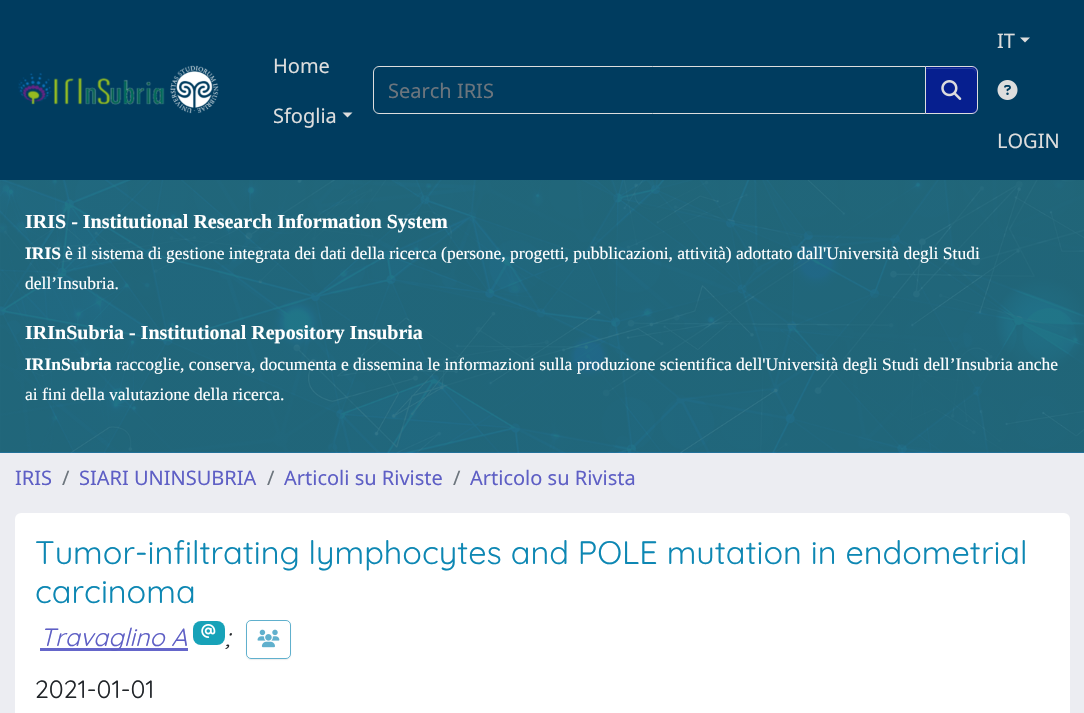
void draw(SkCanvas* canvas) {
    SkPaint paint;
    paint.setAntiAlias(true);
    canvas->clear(0xFFECEDF2);
    paint.setColor(0xFF003C5F);
    canvas->drawRect(SkRect::MakeXYWH(0, 0, 1084, 180), paint);
    canvas->drawImageRect(SkImages::DeferredFromEncodedData(SkData::MakeFromFileName("img1.png")), SkRect::MakeXYWH(18, 65, 201, 49), SkSamplingOptions());
    SkFont font1(fontMgr->matchFamilyStyle("Noto Sans", SkFontStyle::Normal()), 20);
    font1.setSubpixel(true);
    paint.setColor(0xFFDDDDDD);
    canvas->drawString("Home", 273, 73, font1, paint);
    canvas->drawString("Sfoglia", 273, 123, font1, paint);
    canvas->drawPath(SkPathBuilder().moveTo(342.5f, 112.5f).lineTo(352.5f, 112.5f).lineTo(347.5f, 117.5f).close().detach(), paint);
    paint.setStyle(SkPaint::kStroke_Style);
    paint.setStrokeWidth(1);
    canvas->drawPath(SkPathBuilder().moveTo(379, 66.5f).lineTo(925.5f, 66.5f).lineTo(925.5f, 113.5f).lineTo(379, 113.5f).cubicTo(376, 113.5f, 373.5f, 111, 373.5f, 108).lineTo(373.5f, 72).cubicTo(373.5f, 69, 376, 66.5f, 379, 66.5f).close().detach(), paint);
    paint.setStyle(SkPaint::kFill_Style);
    paint.setColor(0xFF6C757D);
    canvas->drawString("Search IRIS", 388, 98, font1, paint);
    paint.setColor(0xA10A0CAB);
    canvas->drawPath(SkPathBuilder().moveTo(925, 66).lineTo(972, 66).cubicTo(975.5f, 66, 978, 68.5f, 978, 72).lineTo(978, 108).cubicTo(978, 111.5f, 975.5f, 114, 972, 114).lineTo(925, 114).close().detach(), paint);
    paint.setColor(0xFF2C40A0);
    canvas->drawPath(SkPathBuilder().moveTo(926, 69).lineTo(971, 69).cubicTo(974, 69, 976, 71, 976, 74).lineTo(976, 73).cubicTo(976, 70, 974, 68, 971, 68).lineTo(926, 68).close().detach(), paint);
    paint.setStyle(SkPaint::kStroke_Style);
    paint.setColor(0xFFDDDDDD);
    canvas->drawPath(SkPathBuilder().moveTo(925.5f, 66.5f).lineTo(972, 66.5f).cubicTo(975, 66.5f, 977.5f, 69, 977.5f, 72).lineTo(977.5f, 108).cubicTo(977.5f, 111, 975, 113.5f, 972, 113.5f).lineTo(925.5f, 113.5f).close().detach(), paint);
    canvas->drawImageRect(SkImages::DeferredFromEncodedData(SkData::MakeFromFileName("img2.png")), SkRect::MakeXYWH(941, 80, 21, 20), SkSamplingOptions());
    paint.setStyle(SkPaint::kFill_Style);
    canvas->drawString("IT", 997, 48, font1, paint);
    canvas->drawPath(SkPathBuilder().moveTo(1020, 37.5f).lineTo(1030, 37.5f).lineTo(1025, 42.5f).close().detach(), paint);
    canvas->drawImageRect(SkImages::DeferredFromEncodedData(SkData::MakeFromFileName("img3.png")), SkRect::MakeXYWH(997, 80, 21, 20), SkSamplingOptions());
    canvas->drawString("LOGIN", 997, 148, font1, paint);
    paint.setColor(0xFF0D87B3);
    canvas->drawRect(SkRect::MakeXYWH(0, 452, 1084, 1), paint);
    canvas->drawImageRect(SkImages::DeferredFromEncodedData(SkData::MakeFromFileName("img4.png")), SkRect::MakeXYWH(0, 180, 1084, 273), SkSamplingOptions());
    SkFont font2(fontMgr->matchFamilyStyle("Liberation Serif", SkFontStyle::Bold()), 20);
    font2.setSubpixel(true);
    paint.setColor(0xFFFFFFFF);
    canvas->drawString("IRIS - Institutional Research Information System", 25, 228, font2, paint);
    SkFont font3(fontMgr->matchFamilyStyle("Liberation Serif", SkFontStyle::Bold()), 17.5f);
    font3.setSubpixel(true);
    canvas->drawString("IRIS", 25, 259, font3, paint);
    SkFont font4(fontMgr->matchFamilyStyle("Liberation Serif", SkFontStyle::Normal()), 17.5f);
    font4.setSubpixel(true);
    canvas->drawString("è il sistema di gestione integrata dei dati della ricerca (persone, progetti, pubblicazioni, attività) adottato dall'Università degli Studi", 65, 259, font4, paint);
    canvas->drawString("dell’Insubria.", 25, 289, font4, paint);
    canvas->drawString("IRInSubria - Institutional Repository Insubria", 25, 339, font2, paint);
    canvas->drawString("IRInSubria", 25, 370, font3, paint);
    canvas->drawString("raccoglie, conserva, documenta e dissemina le informazioni sulla produzione scientifica dell'Università degli Studi dell’Insubria anche", 116, 370, font4, paint);
    canvas->drawString("ai fini della valutazione della ricerca.", 25, 400, font4, paint);
    paint.setColor(0xFF5E5FC5);
    canvas->drawString("IRIS", 15, 485, font1, paint);
    paint.setColor(0xFF6C757D);
    canvas->drawString("/", 62, 485, font1, paint);
    paint.setColor(0xFF5E5FC5);
    canvas->drawString("SIARI UNINSUBRIA", 79, 485, font1, paint);
    paint.setColor(0xFF6C757D);
    canvas->drawString("/", 267, 485, font1, paint);
    paint.setColor(0xFF5E5FC5);
    canvas->drawString("Articoli su Riviste", 284, 485, font1, paint);
    paint.setColor(0xFF6C757D);
    canvas->drawString("/", 453, 485, font1, paint);
    paint.setColor(0xFF5E5FC5);
    canvas->drawString("Articolo su Rivista", 470, 485, font1, paint);
    paint.setColor(0xFFFFFFFF);
    canvas->drawRoundRect(SkRect::MakeXYWH(15, 513, 1055, 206), 6, 6, paint);
    SkFont font5(fontMgr->matchFamilyStyle("Quicksand", SkFontStyle(300, SkFontStyle::kNormal_Width, SkFontStyle::kUpright_Slant)), 32.5f);
    font5.setSubpixel(true);
    paint.setColor(0xFF0D87B3);
    canvas->drawString("Tumor-infiltrating lymphocytes and POLE mutation in endometrial", 35, 564, font5, paint);
    canvas->drawString("carcinoma", 35, 603, font5, paint);
    paint.setColor(0xFF6566CA);
    canvas->drawRect(SkRect::MakeXYWH(40, 648, 148, 3), paint);
    SkFont font6(fontMgr->matchFamilyStyle("Quicksand", SkFontStyle(300, SkFontStyle::kNormal_Width, SkFontStyle::kItalic_Slant)), 25);
    font6.setSubpixel(true);
    paint.setColor(0xFF5E5FC5);
    canvas->drawString("Travaglino A", 40, 646, font6, paint);
    paint.setColor(0xFF17A2B8);
    canvas->drawRoundRect(SkRect::MakeXYWH(193, 621, 32, 24), 8, 8, paint);
    canvas->drawImageRect(SkImages::DeferredFromEncodedData(SkData::MakeFromFileName("img5.png")), SkRect::MakeXYWH(201, 624, 15, 14), SkSamplingOptions());
    paint.setColor(0xFF212529);
    canvas->drawString(";", 225, 646, font6, paint);
    canvas->save();
    canvas->clipPath(SkPathBuilder(SkPathFillType::kEvenOdd).moveTo(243, 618).lineTo(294, 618).lineTo(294, 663).lineTo(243, 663).close().moveTo(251, 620).lineTo(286, 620).cubicTo(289, 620, 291, 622, 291, 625).lineTo(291, 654).cubicTo(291, 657, 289, 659, 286, 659).lineTo(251, 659).cubicTo(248, 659, 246, 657, 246, 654).lineTo(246, 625).cubicTo(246, 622, 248, 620, 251, 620).close().detach(), true);
    paint.setColor(0x12000000);
    paint.setMaskFilter(SkMaskFilter::MakeBlur(kNormal_SkBlurStyle, 0.5f));
    canvas->drawRoundRect(SkRect::MakeXYWH(246, 621, 45, 39), 5, 5, paint);
    paint.setMaskFilter(nullptr);
    canvas->restore();
    paint.setStyle(SkPaint::kStroke_Style);
    paint.setColor(0xA80D87B3);
    canvas->drawRoundRect(SkRect::MakeXYWH(246.5f, 620.5f, 44, 38), 4.5f, 4.5f, paint);
    canvas->drawImageRect(SkImages::DeferredFromEncodedData(SkData::MakeFromFileName("img6.png")), SkRect::MakeXYWH(257, 629, 23, 19), SkSamplingOptions());
    SkFont font7(fontMgr->matchFamilyStyle("Quicksand", SkFontStyle(300, SkFontStyle::kNormal_Width, SkFontStyle::kUpright_Slant)), 25);
    font7.setSubpixel(true);
    paint.setStyle(SkPaint::kFill_Style);
    paint.setColor(0xFF212529);
    canvas->drawString("2021-01-01", 35, 698, font7, paint);
}
